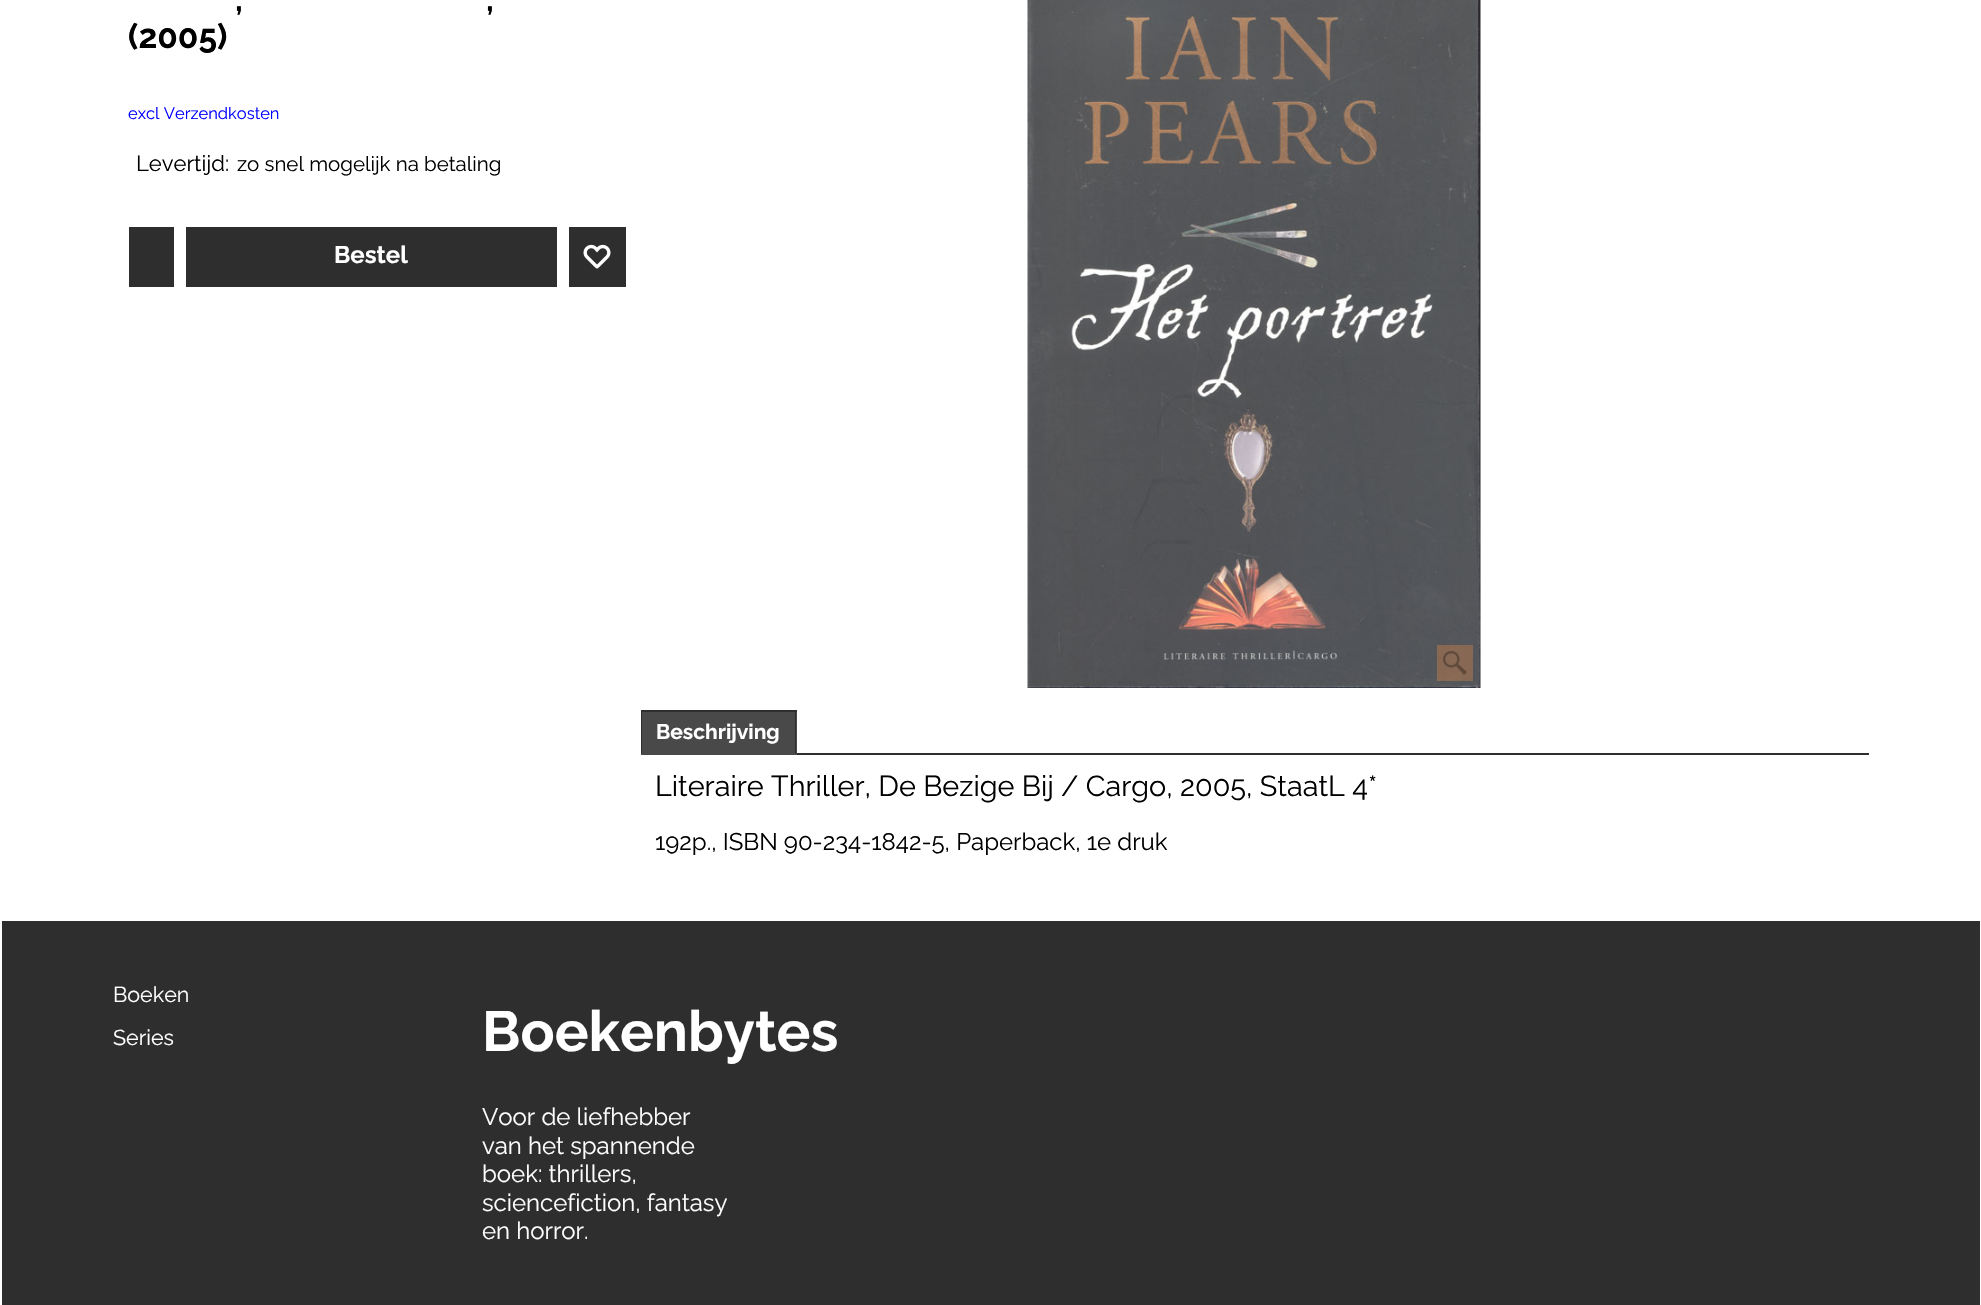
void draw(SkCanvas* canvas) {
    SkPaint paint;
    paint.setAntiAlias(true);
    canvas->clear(0xFFFFFFFF);
    SkFont font1(fontMgr->matchFamilyStyle("Raleway", SkFontStyle::Bold()), 33.5f);
    font1.setSubpixel(true);
    paint.setColor(0xFF000000);
    canvas->drawString(",", 235, 11, font1, paint);
    canvas->drawString(",", 486, 11, font1, paint);
    canvas->drawString("(2005)", 128, 48, font1, paint);
    SkFont font2(fontMgr->matchFamilyStyle("Raleway", SkFontStyle::Normal()), 16.5f);
    font2.setSubpixel(true);
    paint.setColor(0xFF0000FF);
    canvas->drawString("excl Verzendkosten", 128, 119, font2, paint);
    SkFont font3(fontMgr->matchFamilyStyle("Raleway", SkFontStyle::Normal()), 22);
    font3.setSubpixel(true);
    paint.setColor(0xFF000000);
    canvas->drawString("Levertijd:", 136, 171, font3, paint);
    SkFont font4(fontMgr->matchFamilyStyle("Raleway", SkFontStyle::Normal()), 20.5f);
    font4.setSubpixel(true);
    canvas->drawString("zo snel mogelijk na betaling", 237, 171, font4, paint);
    paint.setColor(0xFF2E2E2E);
    canvas->drawRect(SkRect::MakeXYWH(129, 227, 45, 60), paint);
    canvas->drawRect(SkRect::MakeXYWH(186, 227, 371, 60), paint);
    SkFont font5(fontMgr->matchFamilyStyle("Raleway", SkFontStyle::Bold()), 24);
    font5.setSubpixel(true);
    paint.setColor(0xFFFFFFFF);
    canvas->drawString("Bestel", 334, 263, font5, paint);
    paint.setColor(0xFF2E2E2E);
    canvas->drawRect(SkRect::MakeXYWH(569, 227, 57, 60), paint);
    canvas->drawImageRect(SkImages::DeferredFromEncodedData(SkData::MakeFromFileName("img1.png")), SkRect::MakeXYWH(583, 244, 28, 25), SkSamplingOptions());
    canvas->drawImageRect(SkImages::DeferredFromEncodedData(SkData::MakeFromFileName("img2.png")), SkRect::MakeXYWH(1027, 0, 454, 688), SkSamplingOptions());
    paint.setColor(0x4DFB9241);
    canvas->drawRect(SkRect::MakeXYWH(1437, 645, 36, 36), paint);
    canvas->drawImageRect(SkImages::DeferredFromEncodedData(SkData::MakeFromFileName("img3.png")), SkRect::MakeXYWH(1443, 651, 24, 24), SkSamplingOptions());
    paint.setColor(0xFF494949);
    canvas->drawRect(SkRect::MakeXYWH(641, 712, 156, 43), paint);
    paint.setColor(0xFF2E2E2E);
    canvas->drawRect(SkRect::MakeXYWH(641, 710, 156, 2), paint);
    canvas->drawPath(SkPathBuilder().moveTo(796, 710).lineTo(796, 754).lineTo(795, 753).lineTo(795, 711).close().detach(), paint);
    canvas->save();
    canvas->clipRect(SkRect::MakeXYWH(641, 710, 1228, 45));
    canvas->drawPath(SkPathBuilder().moveTo(640, 754).lineTo(640, 710).lineTo(642, 711).lineTo(642, 753).close().detach(), paint);
    canvas->restore();
    SkFont font6(fontMgr->matchFamilyStyle("Raleway", SkFontStyle::Bold()), 21);
    font6.setSubpixel(true);
    paint.setColor(0xFFFFFFFF);
    canvas->drawString("Beschrijving", 656, 739, font6, paint);
    paint.setColor(0xFF2E2E2E);
    canvas->drawRect(SkRect::MakeXYWH(797, 753, 1072, 2), paint);
    SkFont font7(fontMgr->matchFamilyStyle("Raleway", SkFontStyle::Normal()), 28.8f);
    font7.setSubpixel(true);
    paint.setColor(0xFF000000);
    canvas->drawString("Literaire Thriller, De Bezige Bij / Cargo, 2005, StaatL 4*", 655, 796, font7, paint);
    SkFont font8(fontMgr->matchFamilyStyle("Raleway", SkFontStyle::Normal()), 24);
    font8.setSubpixel(true);
    canvas->drawString("192p., ISBN 90-234-1842-5, Paperback, 1e druk", 655, 850, font8, paint);
    paint.setColor(0xFF2E2E2E);
    canvas->drawRect(SkRect::MakeXYWH(2, 921, 1978, 384), paint);
    SkFont font9(fontMgr->matchFamilyStyle("Raleway", SkFontStyle::Normal()), 21.5f);
    font9.setSubpixel(true);
    paint.setColor(0xFFFFFFFF);
    canvas->drawString("Boeken", 113, 1002, font9, paint);
    canvas->drawString("Series", 113, 1045, font9, paint);
    SkFont font10(fontMgr->matchFamilyStyle("Raleway", SkFontStyle::Bold()), 56.5f);
    font10.setSubpixel(true);
    canvas->drawString("Boekenbytes", 482, 1051, font10, paint);
    canvas->drawString("Voor de liefhebber", 482, 1125, font8, paint);
    canvas->drawString("van het spannende", 482, 1154, font8, paint);
    canvas->drawString("boek: thrillers,", 482, 1182, font8, paint);
    canvas->drawString("sciencefiction, fantasy", 482, 1211, font8, paint);
    canvas->drawString("en horror.", 482, 1239, font8, paint);
}
